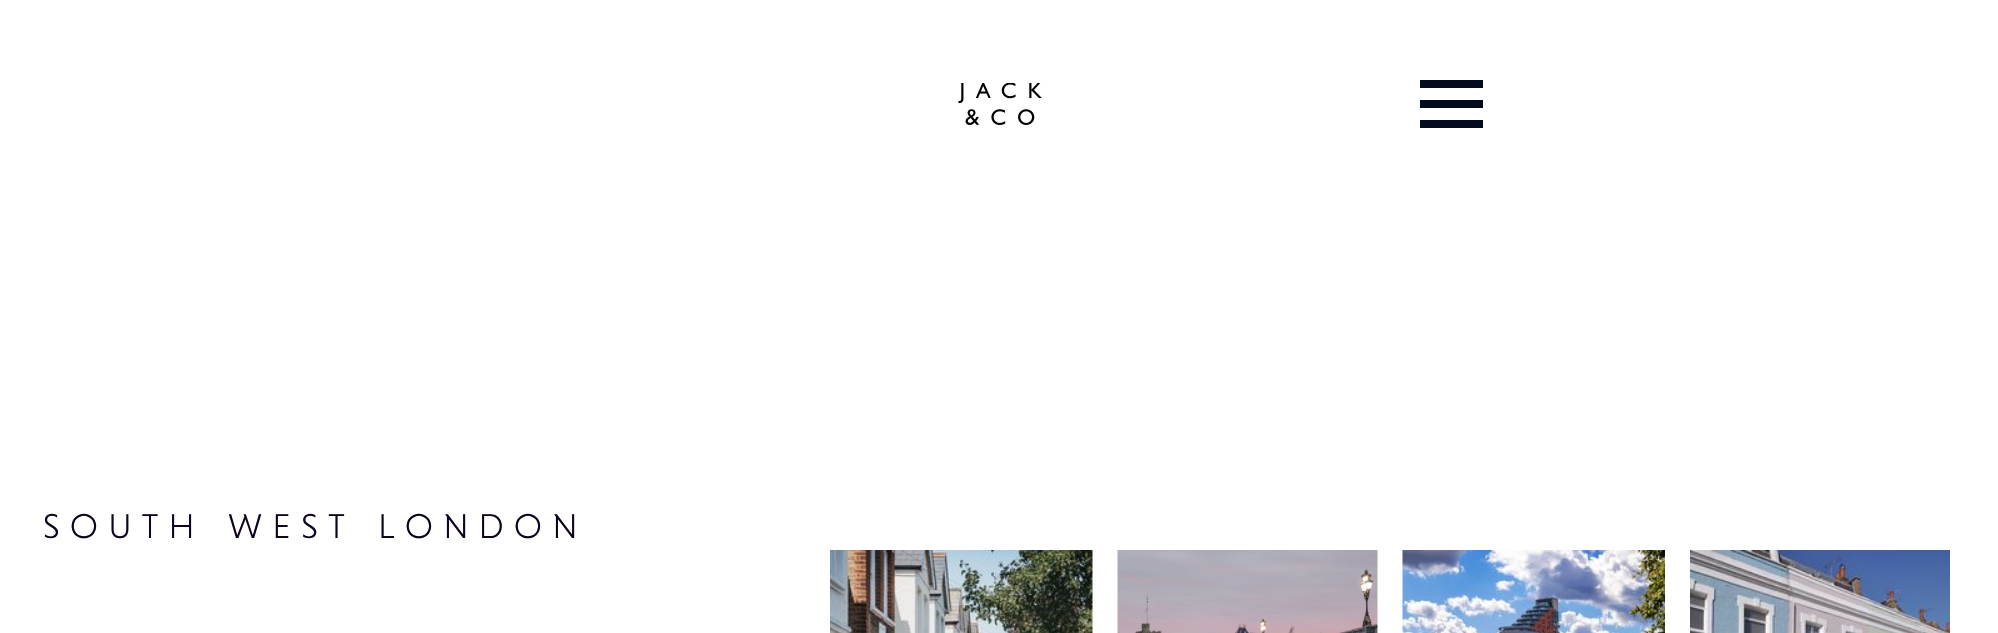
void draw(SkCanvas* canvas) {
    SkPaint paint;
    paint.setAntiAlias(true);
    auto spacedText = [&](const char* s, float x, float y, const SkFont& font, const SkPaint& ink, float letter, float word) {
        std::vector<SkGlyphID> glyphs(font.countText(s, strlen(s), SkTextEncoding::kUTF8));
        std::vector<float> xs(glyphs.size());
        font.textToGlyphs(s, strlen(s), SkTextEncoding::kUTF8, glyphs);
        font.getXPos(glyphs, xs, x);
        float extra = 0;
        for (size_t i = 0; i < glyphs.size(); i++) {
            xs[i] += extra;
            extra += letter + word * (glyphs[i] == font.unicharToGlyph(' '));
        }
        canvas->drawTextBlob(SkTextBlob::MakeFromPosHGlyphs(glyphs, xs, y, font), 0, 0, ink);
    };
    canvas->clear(0xFFFFFFFF);
    canvas->drawImageRect(SkImages::DeferredFromEncodedData(SkData::MakeFromFileName("img1.png")), SkRect::MakeXYWH(958, 83, 84, 42), SkSamplingOptions());
    paint.setColor(0xFF020C1E);
    canvas->drawRect(SkRect::MakeXYWH(1420, 100, 63, 8), paint);
    canvas->drawRect(SkRect::MakeXYWH(1420, 80, 63, 8), paint);
    canvas->drawRect(SkRect::MakeXYWH(1420, 120, 63, 8), paint);
    SkFont font1(fontMgr->matchFamilyStyle("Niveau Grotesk", SkFontStyle(300, SkFontStyle::kNormal_Width, SkFontStyle::kUpright_Slant)), 35);
    font1.setSubpixel(true);
    paint.setColor(0xFF0F041F);
    spacedText("SOUTH WEST LONDON", 43, 538, font1, paint, 10.5f, 4);
    canvas->drawImageRect(SkImages::DeferredFromEncodedData(SkData::MakeFromFileName("img2.png")), SkRect::MakeXYWH(830, 550, 263, 83), SkSamplingOptions());
    canvas->drawImageRect(SkImages::DeferredFromEncodedData(SkData::MakeFromFileName("img3.png")), SkRect::MakeXYWH(1117, 550, 261, 83), SkSamplingOptions());
    canvas->drawImageRect(SkImages::DeferredFromEncodedData(SkData::MakeFromFileName("img4.png")), SkRect::MakeXYWH(1402, 550, 263, 83), SkSamplingOptions());
    canvas->drawImageRect(SkImages::DeferredFromEncodedData(SkData::MakeFromFileName("img5.png")), SkRect::MakeXYWH(1690, 550, 260, 83), SkSamplingOptions());
}
